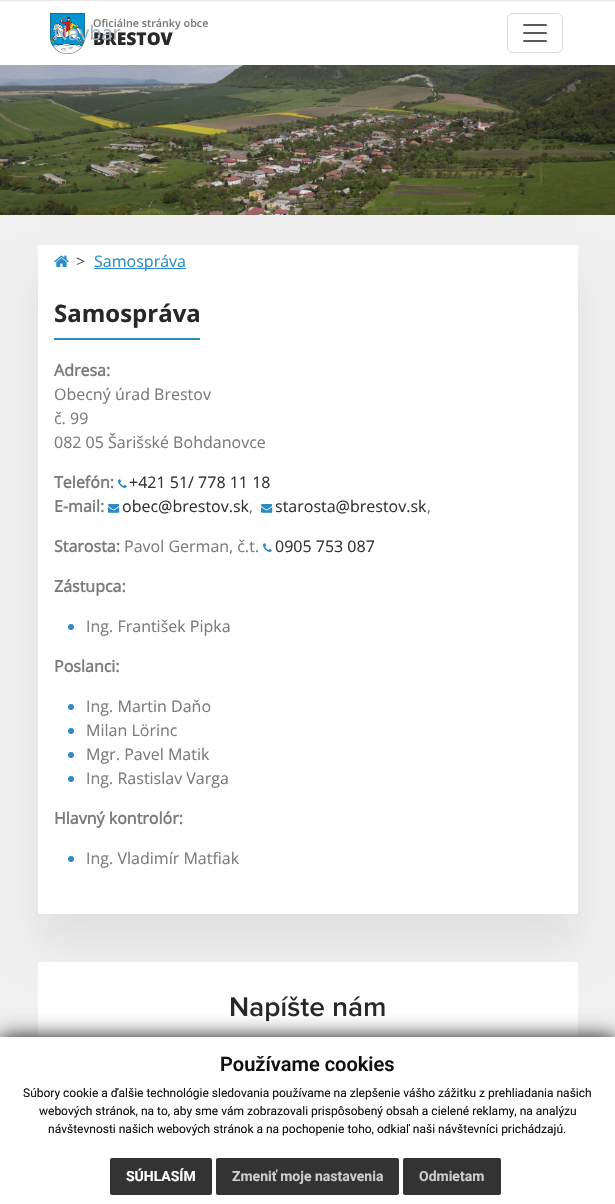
void draw(SkCanvas* canvas) {
    SkPaint paint;
    paint.setAntiAlias(true);
    canvas->clear(0xFFF1F1F1);
    paint.setColor(0xFFFFFFFF);
    canvas->drawRect(SkRect::MakeXYWH(0, 1, 615, 64), paint);
    paint.setColor(0xFFE6E6E6);
    canvas->drawRect(SkRect::MakeXYWH(0, 0, 615, 1), paint);
    canvas->drawImageRect(SkImages::DeferredFromEncodedData(SkData::MakeFromFileName("img2.png")), SkRect::MakeXYWH(50, 13, 35, 41), SkSamplingOptions());
    SkFont font1(fontMgr->matchFamilyStyle("Open Sans", SkFontStyle(600, SkFontStyle::kNormal_Width, SkFontStyle::kUpright_Slant)), 10.75f);
    font1.setSubpixel(true);
    paint.setColor(0xFF7B7B7B);
    canvas->drawString("Oficiálne stránky obce", 93, 27, font1, paint);
    SkFont font2(fontMgr->matchFamilyStyle("Open Sans", SkFontStyle(800, SkFontStyle::kNormal_Width, SkFontStyle::kUpright_Slant)), 17.5f);
    font2.setSubpixel(true);
    paint.setColor(0xFF282828);
    canvas->drawString("BRESTOV", 93, 45, font2, paint);
    SkFont font3(fontMgr->matchFamilyStyle("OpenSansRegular", SkFontStyle::Normal()), 20);
    font3.setSubpixel(true);
    paint.setColor(0xFFA4B5BD);
    canvas->drawString("Navbar", 53, 40, font3, paint);
    paint.setStyle(SkPaint::kStroke_Style);
    paint.setStrokeWidth(1);
    paint.setColor(0xFFD9D9D9);
    canvas->drawRoundRect(SkRect::MakeXYWH(507.5f, 13.5f, 55, 39), 5.5f, 5.5f, paint);
    canvas->drawImageRect(SkImages::DeferredFromEncodedData(SkData::MakeFromFileName("img1.png")), SkRect::MakeXYWH(523, 24, 24, 18), SkSamplingOptions());
    canvas->drawImageRect(SkImages::DeferredFromEncodedData(SkData::MakeFromFileName("img3.png")), SkRect::MakeXYWH(0, 65, 615, 150), SkSamplingOptions());
    paint.setStyle(SkPaint::kFill_Style);
    paint.setColor(0x12000000);
    paint.setMaskFilter(SkMaskFilter::MakeBlur(kNormal_SkBlurStyle, 20));
    canvas->drawRect(SkRect::MakeXYWH(38, 275, 540, 669), paint);
    paint.setMaskFilter(nullptr);
    paint.setColor(0xFFFFFFFF);
    canvas->drawRect(SkRect::MakeXYWH(38, 245, 540, 669), paint);
    canvas->drawImageRect(SkImages::DeferredFromEncodedData(SkData::MakeFromFileName("img4.png")), SkRect::MakeXYWH(54, 255, 15, 12), SkSamplingOptions());
    SkFont font4(fontMgr->matchFamilyStyle("OpenSansRegular", SkFontStyle::Normal()), 16);
    font4.setSubpixel(true);
    paint.setColor(0xFF595C5F);
    canvas->drawString(">", 76, 267, font4, paint);
    paint.setColor(0xFF2B8CC4);
    canvas->drawRect(SkRect::MakeXYWH(94, 268, 92, 1), paint);
    canvas->drawString("Samospráva", 94, 267, font4, paint);
    canvas->drawRect(SkRect::MakeXYWH(54, 338, 146, 2), paint);
    SkFont font5(fontMgr->matchFamilyStyle("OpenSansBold", SkFontStyle::Bold()), 24);
    font5.setSubpixel(true);
    paint.setColor(0xFF282828);
    canvas->drawString("Samospráva", 54, 322, font5, paint);
    SkFont font6(fontMgr->matchFamilyStyle("OpenSansRegular", SkFontStyle::Bold()), 16);
    font6.setSubpixel(true);
    paint.setColor(0xFF7B7B7B);
    canvas->drawString("Adresa:", 54, 376, font6, paint);
    canvas->drawString("Obecný úrad Brestov", 54, 400, font4, paint);
    canvas->drawString("č. 99", 54, 424, font4, paint);
    canvas->drawString("082 05 Šarišské Bohdanovce", 54, 448, font4, paint);
    canvas->drawString("Telefón:", 54, 488, font6, paint);
    canvas->drawImageRect(SkImages::DeferredFromEncodedData(SkData::MakeFromFileName("img5.png")), SkRect::MakeXYWH(118, 479, 9, 9), SkSamplingOptions());
    paint.setColor(0xFF333333);
    canvas->drawString("+421 51/ 778 11 18", 129, 488, font4, paint);
    paint.setColor(0xFF7B7B7B);
    canvas->drawString("E-mail:", 54, 512, font6, paint);
    canvas->drawImageRect(SkImages::DeferredFromEncodedData(SkData::MakeFromFileName("img6.png")), SkRect::MakeXYWH(108, 504, 12, 9), SkSamplingOptions());
    paint.setColor(0xFF333333);
    canvas->drawString("obec@brestov.sk", 122, 512, font4, paint);
    paint.setColor(0xFF7B7B7B);
    canvas->drawString(",", 249, 512, font4, paint);
    canvas->drawImageRect(SkImages::DeferredFromEncodedData(SkData::MakeFromFileName("img6.png")), SkRect::MakeXYWH(261, 504, 12, 9), SkSamplingOptions());
    paint.setColor(0xFF333333);
    canvas->drawString("starosta@brestov.sk", 275, 512, font4, paint);
    paint.setColor(0xFF7B7B7B);
    canvas->drawString(",", 427, 512, font4, paint);
    canvas->drawString("Starosta:", 54, 552, font6, paint);
    canvas->drawString("Pavol German, č.t.", 124, 552, font4, paint);
    canvas->drawImageRect(SkImages::DeferredFromEncodedData(SkData::MakeFromFileName("img5.png")), SkRect::MakeXYWH(263, 543, 9, 9), SkSamplingOptions());
    paint.setColor(0xFF333333);
    canvas->drawString("0905 753 087", 275, 552, font4, paint);
    paint.setColor(0xFF7B7B7B);
    canvas->drawString("Zástupca:", 54, 592, font6, paint);
    paint.setColor(0xFF2B8CC4);
    canvas->drawCircle(71, 627, 3, paint);
    paint.setColor(0xFF7B7B7B);
    canvas->drawString("Ing. František Pipka", 86, 632, font4, paint);
    canvas->drawString("Poslanci:", 54, 672, font6, paint);
    paint.setColor(0xFF2B8CC4);
    canvas->drawCircle(71, 707, 3, paint);
    paint.setColor(0xFF7B7B7B);
    canvas->drawString("Ing. Martin Daňo", 86, 712, font4, paint);
    paint.setColor(0xFF2B8CC4);
    canvas->drawCircle(71, 731, 3, paint);
    paint.setColor(0xFF7B7B7B);
    canvas->drawString("Milan Lörinc", 86, 736, font4, paint);
    paint.setColor(0xFF2B8CC4);
    canvas->drawCircle(71, 755, 3, paint);
    paint.setColor(0xFF7B7B7B);
    canvas->drawString("Mgr. Pavel Matik", 86, 760, font4, paint);
    paint.setColor(0xFF2B8CC4);
    canvas->drawCircle(71, 779, 3, paint);
    paint.setColor(0xFF7B7B7B);
    canvas->drawString("Ing. Rastislav Varga", 86, 784, font4, paint);
    canvas->drawString("Hlavný kontrolór:", 54, 824, font6, paint);
    paint.setColor(0xFF2B8CC4);
    canvas->drawCircle(71, 859, 3, paint);
    paint.setColor(0xFF7B7B7B);
    canvas->drawString("Ing. Vladimír Matfiak", 86, 864, font4, paint);
    paint.setColor(0xFFFFFFFF);
    canvas->drawRect(SkRect::MakeXYWH(38, 962, 540, 75), paint);
    canvas->drawImageRect(SkImages::DeferredFromEncodedData(SkData::MakeFromFileName("img7.png")), SkRect::MakeXYWH(231, 996, 154, 26), SkSamplingOptions());
    paint.setColor(0xFF111111);
    paint.setMaskFilter(SkMaskFilter::MakeBlur(kNormal_SkBlurStyle, 10));
    canvas->drawRect(SkRect::MakeXYWH(0, 1037, 615, 167), paint);
    paint.setMaskFilter(nullptr);
    paint.setColor(0xFFFFFFFF);
    canvas->drawRect(SkRect::MakeXYWH(0, 1037, 615, 167), paint);
    SkFont font7(fontMgr->matchFamilyStyle("Roboto", SkFontStyle(600, SkFontStyle::kNormal_Width, SkFontStyle::kUpright_Slant)), 20);
    font7.setSubpixel(true);
    paint.setColor(0xFF111111);
    canvas->drawString("Používame cookies", 220, 1071, font7, paint);
    SkFont font8(fontMgr->matchFamilyStyle("Roboto", SkFontStyle::Normal()), 12);
    font8.setSubpixel(true);
    canvas->drawString("Súbory cookie a ďalšie technológie sledovania používame na zlepšenie vášho zážitku z prehliadania našich", 23, 1097, font8, paint);
    canvas->drawString("webových stránok, na to, aby sme vám zobrazovali prispôsobený obsah a cielené reklamy, na analýzu", 39, 1115, font8, paint);
    canvas->drawString("návštevnosti našich webových stránok a na pochopenie toho, odkiaľ naši návštevníci prichádzajú.", 48, 1133, font8, paint);
    paint.setColor(0xFF333333);
    canvas->drawRoundRect(SkRect::MakeXYWH(110, 1158, 102, 37), 2, 2, paint);
    SkFont font9(fontMgr->matchFamilyStyle("Roboto", SkFontStyle::Bold()), 14);
    font9.setSubpixel(true);
    paint.setColor(0xFFFFFFFF);
    canvas->drawString("SÚHLASÍM", 126, 1181, font9, paint);
    paint.setColor(0xFF333333);
    canvas->drawRoundRect(SkRect::MakeXYWH(216, 1158, 183, 37), 2, 2, paint);
    paint.setColor(0xFFCCCCCC);
    canvas->drawString("Zmeniť moje nastavenia", 232, 1181, font9, paint);
    paint.setColor(0xFF333333);
    canvas->drawRoundRect(SkRect::MakeXYWH(403, 1158, 98, 37), 2, 2, paint);
    paint.setColor(0xFFCCCCCC);
    canvas->drawString("Odmietam", 419, 1181, font9, paint);
}
